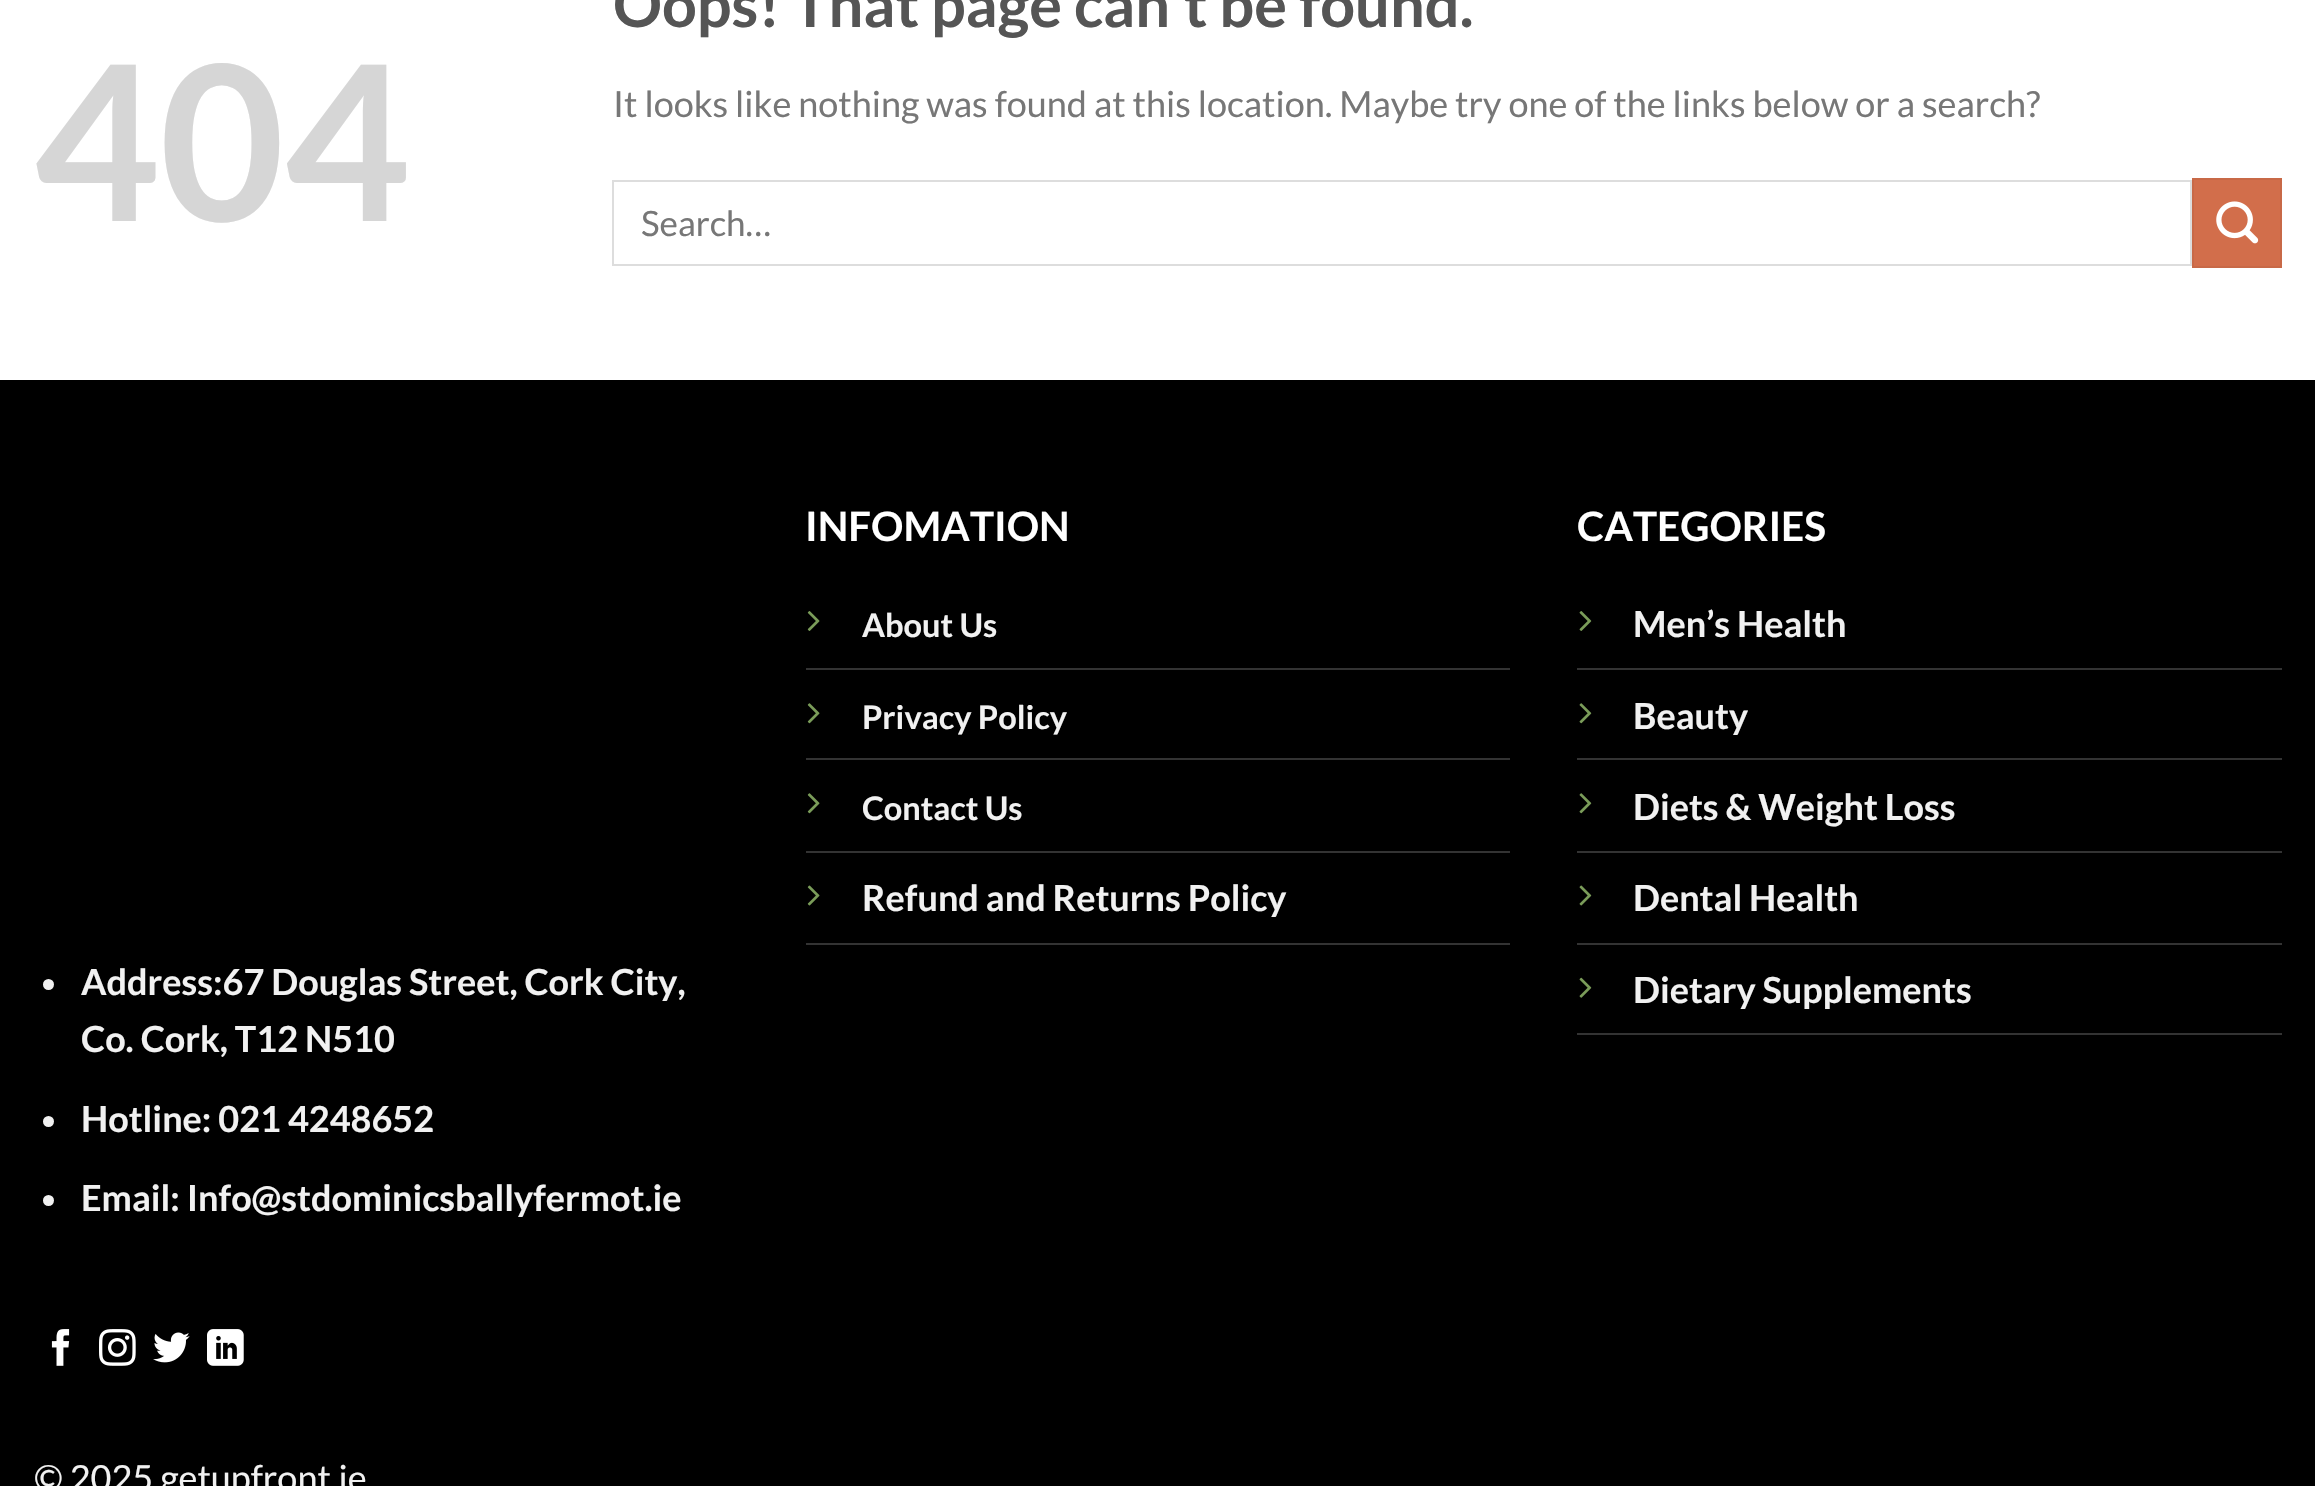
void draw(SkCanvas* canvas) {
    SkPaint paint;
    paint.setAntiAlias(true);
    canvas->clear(0xFFFFFFFF);
    SkFont font1(fontMgr->matchFamilyStyle("Lato", SkFontStyle::Bold()), 216);
    font1.setSubpixel(true);
    paint.setColor(0xFFD6D6D6);
    canvas->drawString("404", 34, 221, font1, paint);
    SkFont font2(fontMgr->matchFamilyStyle("Lato", SkFontStyle::Bold()), 61.25f);
    font2.setSubpixel(true);
    paint.setColor(0xFF555555);
    canvas->drawString("Oops! That page can’t be found.", 613, 27, font2, paint);
    SkFont font3(fontMgr->matchFamilyStyle("Lato", SkFontStyle::Normal()), 36);
    font3.setSubpixel(true);
    paint.setColor(0xFF777777);
    canvas->drawString("It looks like nothing was found at this location. Maybe try one of the links below or a search?", 613, 117, font3, paint);
    paint.setStyle(SkPaint::kStroke_Style);
    paint.setStrokeWidth(2);
    paint.setColor(0xFFDDDDDD);
    canvas->drawRect(SkRect::MakeXYWH(613, 181, 1578, 84), paint);
    SkFont font4(fontMgr->matchFamilyStyle("Lato", SkFontStyle::Normal()), 35);
    font4.setSubpixel(true);
    paint.setStyle(SkPaint::kFill_Style);
    paint.setColor(0xFF777777);
    canvas->drawString("Search…", 641, 236, font4, paint);
    paint.setColor(0xFFD26E4B);
    canvas->drawRect(SkRect::MakeXYWH(2193, 179, 88, 88), paint);
    paint.setStyle(SkPaint::kStroke_Style);
    paint.setColor(0xFFC86947);
    canvas->drawRect(SkRect::MakeXYWH(2193, 179, 88, 88), paint);
    canvas->drawImageRect(SkImages::DeferredFromEncodedData(SkData::MakeFromFileName("img1.png")), SkRect::MakeXYWH(2216, 201, 43, 43), SkSamplingOptions());
    paint.setStyle(SkPaint::kFill_Style);
    paint.setColor(0xFF000000);
    canvas->drawRect(SkRect::MakeXYWH(0, 380, 2315, 1106), paint);
    SkFont font5(fontMgr->matchFamilyStyle("Lato", SkFontStyle::Bold()), 40.5f);
    font5.setSubpixel(true);
    paint.setColor(0xFFFFFFFF);
    canvas->drawString("INFOMATION", 805, 541, font5, paint);
    paint.setColor(0xFF333333);
    canvas->drawRect(SkRect::MakeXYWH(806, 668, 704, 2), paint);
    canvas->drawImageRect(SkImages::DeferredFromEncodedData(SkData::MakeFromFileName("img2.png")), SkRect::MakeXYWH(807, 611, 13, 20), SkSamplingOptions());
    SkFont font6(fontMgr->matchFamilyStyle("Lato", SkFontStyle::Bold()), 32.5f);
    font6.setSubpixel(true);
    paint.setColor(0xFFF1F1F1);
    canvas->drawString("About Us", 862, 637, font6, paint);
    paint.setColor(0xFF333333);
    canvas->drawRect(SkRect::MakeXYWH(806, 758, 704, 2), paint);
    canvas->drawImageRect(SkImages::DeferredFromEncodedData(SkData::MakeFromFileName("img3.png")), SkRect::MakeXYWH(807, 703, 13, 21), SkSamplingOptions());
    paint.setColor(0xFFF1F1F1);
    canvas->drawString("Privacy Policy", 862, 729, font6, paint);
    paint.setColor(0xFF333333);
    canvas->drawRect(SkRect::MakeXYWH(806, 851, 704, 2), paint);
    canvas->drawImageRect(SkImages::DeferredFromEncodedData(SkData::MakeFromFileName("img3.png")), SkRect::MakeXYWH(807, 793, 13, 21), SkSamplingOptions());
    paint.setColor(0xFFF1F1F1);
    canvas->drawString("Contact Us", 862, 820, font6, paint);
    paint.setColor(0xFF333333);
    canvas->drawRect(SkRect::MakeXYWH(806, 943, 704, 2), paint);
    canvas->drawImageRect(SkImages::DeferredFromEncodedData(SkData::MakeFromFileName("img4.png")), SkRect::MakeXYWH(807, 885, 13, 21), SkSamplingOptions());
    SkFont font7(fontMgr->matchFamilyStyle("Lato", SkFontStyle::Bold()), 36);
    font7.setSubpixel(true);
    paint.setColor(0xFFF1F1F1);
    canvas->drawString("Refund and Returns Policy", 862, 911, font7, paint);
    paint.setColor(0xFFFFFFFF);
    canvas->drawString("CATEGORIES", 1577, 541, font5, paint);
    paint.setColor(0xFF333333);
    canvas->drawRect(SkRect::MakeXYWH(1577, 668, 705, 2), paint);
    canvas->drawImageRect(SkImages::DeferredFromEncodedData(SkData::MakeFromFileName("img5.png")), SkRect::MakeXYWH(1579, 611, 13, 20), SkSamplingOptions());
    paint.setColor(0xFFF1F1F1);
    canvas->drawString("Men’s Health", 1633, 637, font7, paint);
    paint.setColor(0xFF333333);
    canvas->drawRect(SkRect::MakeXYWH(1577, 758, 705, 2), paint);
    canvas->drawImageRect(SkImages::DeferredFromEncodedData(SkData::MakeFromFileName("img6.png")), SkRect::MakeXYWH(1579, 703, 13, 21), SkSamplingOptions());
    paint.setColor(0xFFF1F1F1);
    canvas->drawString("Beauty", 1633, 729, font7, paint);
    paint.setColor(0xFF333333);
    canvas->drawRect(SkRect::MakeXYWH(1577, 851, 705, 2), paint);
    canvas->drawImageRect(SkImages::DeferredFromEncodedData(SkData::MakeFromFileName("img6.png")), SkRect::MakeXYWH(1579, 793, 13, 21), SkSamplingOptions());
    paint.setColor(0xFFF1F1F1);
    canvas->drawString("Diets & Weight Loss", 1633, 820, font7, paint);
    paint.setColor(0xFF333333);
    canvas->drawRect(SkRect::MakeXYWH(1577, 943, 705, 2), paint);
    canvas->drawImageRect(SkImages::DeferredFromEncodedData(SkData::MakeFromFileName("img7.png")), SkRect::MakeXYWH(1579, 885, 13, 21), SkSamplingOptions());
    paint.setColor(0xFFF1F1F1);
    canvas->drawString("Dental Health", 1633, 911, font7, paint);
    paint.setColor(0xFF333333);
    canvas->drawRect(SkRect::MakeXYWH(1577, 1033, 705, 2), paint);
    canvas->drawImageRect(SkImages::DeferredFromEncodedData(SkData::MakeFromFileName("img8.png")), SkRect::MakeXYWH(1579, 977, 13, 21), SkSamplingOptions());
    paint.setColor(0xFFF1F1F1);
    canvas->drawString("Dietary Supplements", 1633, 1003, font7, paint);
    canvas->drawCircle(48.5f, 984.5f, 5.5f, paint);
    canvas->drawString("Address:67 Douglas Street, Cork City,", 81, 995, font7, paint);
    canvas->drawString("Co. Cork, T12 N510", 81, 1052, font7, paint);
    canvas->drawCircle(48.5f, 1121.5f, 5.5f, paint);
    canvas->drawString("Hotline: 021 4248652", 81, 1132, font7, paint);
    canvas->drawCircle(48.5f, 1200.5f, 5.5f, paint);
    canvas->drawString("Email: Info@stdominicsballyfermot.ie", 81, 1211, font7, paint);
    canvas->drawImageRect(SkImages::DeferredFromEncodedData(SkData::MakeFromFileName("img9.png")), SkRect::MakeXYWH(51, 1329, 19, 37), SkSamplingOptions());
    canvas->drawImageRect(SkImages::DeferredFromEncodedData(SkData::MakeFromFileName("img10.png")), SkRect::MakeXYWH(99, 1329, 37, 37), SkSamplingOptions());
    canvas->drawImageRect(SkImages::DeferredFromEncodedData(SkData::MakeFromFileName("img11.png")), SkRect::MakeXYWH(153, 1332, 37, 31), SkSamplingOptions());
    canvas->drawImageRect(SkImages::DeferredFromEncodedData(SkData::MakeFromFileName("img12.png")), SkRect::MakeXYWH(207, 1329, 37, 37), SkSamplingOptions());
    canvas->drawString("© 2025 getupfront.ie", 34, 1491, font3, paint);
}
